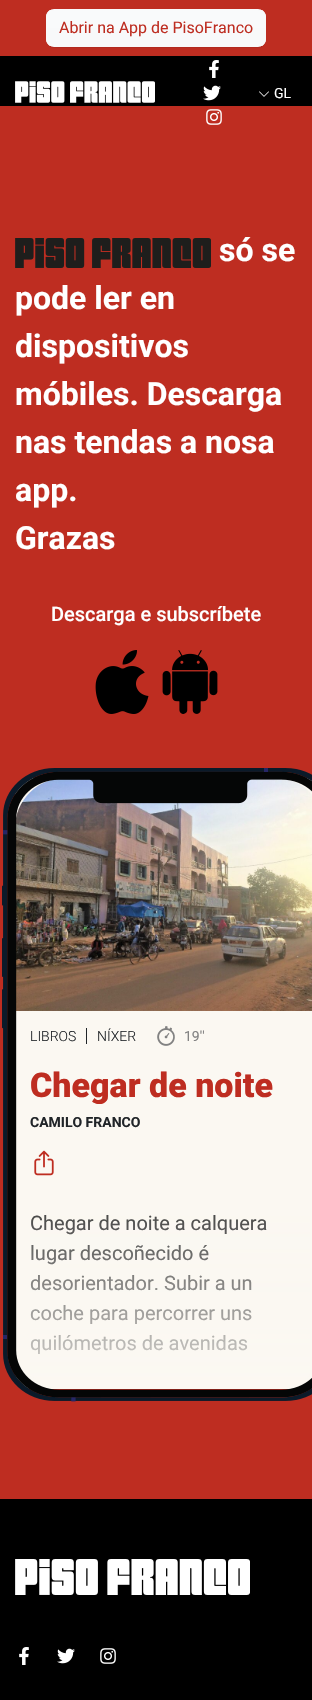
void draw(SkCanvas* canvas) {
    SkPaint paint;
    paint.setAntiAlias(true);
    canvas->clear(0xFFBE2D21);
    paint.setColor(0x12000000);
    paint.setMaskFilter(SkMaskFilter::MakeBlur(kNormal_SkBlurStyle, 0.5f));
    canvas->drawRoundRect(SkRect::MakeXYWH(46, 10, 220, 38), 8, 8, paint);
    paint.setMaskFilter(nullptr);
    canvas->save();
    canvas->clipPath(SkPathBuilder().moveTo(54, 9).lineTo(258, 9).cubicTo(262.5f, 9, 266, 12.5f, 266, 17).lineTo(266, 39).cubicTo(266, 43.5f, 262.5f, 47, 258, 47).lineTo(54, 47).cubicTo(49.5f, 47, 46, 43.5f, 46, 39).lineTo(46, 17).cubicTo(46, 12.5f, 49.5f, 9, 54, 9).close().detach(), true);
    {
        const SkColor colors[] = {0xFFF9FAFB, 0xFFF8F9FA};
        const float stops[] = {0, 1};
        const SkPoint ends[] = {{156, 10}, {156, 46}};
        paint.setShader(SkGradientShader::MakeLinear(ends, colors, stops, 2, SkTileMode::kClamp));
        paint.setAlpha(255);
    }
    canvas->drawRect(SkRect::MakeXYWH(46, 10, 220, 36), paint);
    canvas->restore();
    paint.setStyle(SkPaint::kStroke_Style);
    paint.setStrokeWidth(1);
    paint.setShader(nullptr);
    paint.setColor(0xFFF8F9FA);
    canvas->drawRoundRect(SkRect::MakeXYWH(46.5f, 9.5f, 219, 37), 7.5f, 7.5f, paint);
    SkFont font1(fontMgr->matchFamilyStyle("Roboto", SkFontStyle::Normal()), 16);
    font1.setSubpixel(true);
    paint.setStyle(SkPaint::kFill_Style);
    paint.setColor(0xFFBE2D21);
    canvas->drawString("Abrir na App de PisoFranco", 59, 33, font1, paint);
    paint.setColor(0xFF000000);
    canvas->drawRect(SkRect::MakeXYWH(0, 56, 312, 50), paint);
    canvas->drawImageRect(SkImages::DeferredFromEncodedData(SkData::MakeFromFileName("img1.png")), SkRect::MakeXYWH(15, 81, 140, 22), SkSamplingOptions());
    canvas->drawImageRect(SkImages::DeferredFromEncodedData(SkData::MakeFromFileName("img2.png")), SkRect::MakeXYWH(209, 60, 10, 18), SkSamplingOptions());
    canvas->drawImageRect(SkImages::DeferredFromEncodedData(SkData::MakeFromFileName("img3.png")), SkRect::MakeXYWH(203, 85, 18, 16), SkSamplingOptions());
    canvas->drawImageRect(SkImages::DeferredFromEncodedData(SkData::MakeFromFileName("img4.png")), SkRect::MakeXYWH(206, 109, 16, 16), SkSamplingOptions());
    canvas->drawImageRect(SkImages::DeferredFromEncodedData(SkData::MakeFromFileName("img5.png")), SkRect::MakeXYWH(259, 91, 10, 6), SkSamplingOptions());
    SkFont font2(fontMgr->matchFamilyStyle("Roboto", SkFontStyle::Normal()), 14);
    font2.setSubpixel(true);
    paint.setColor(0xFFFFFFFF);
    canvas->drawString("GL", 274, 98, font2, paint);
    canvas->drawImageRect(SkImages::DeferredFromEncodedData(SkData::MakeFromFileName("img6.png")), SkRect::MakeXYWH(15, 238, 196, 30), SkSamplingOptions());
    SkFont font3(fontMgr->matchFamilyStyle("Roboto", SkFontStyle::Bold()), 32);
    font3.setSubpixel(true);
    canvas->drawString("só se", 219, 261, font3, paint);
    canvas->drawString("pode ler en", 15, 309, font3, paint);
    canvas->drawString("dispositivos", 15, 357, font3, paint);
    canvas->drawString("móbiles. Descarga", 15, 405, font3, paint);
    canvas->drawString("nas tendas a nosa", 15, 453, font3, paint);
    canvas->drawString("app.", 15, 501, font3, paint);
    canvas->drawString("Grazas", 15, 549, font3, paint);
    SkFont font4(fontMgr->matchFamilyStyle("Roboto", SkFontStyle(500, SkFontStyle::kNormal_Width, SkFontStyle::kUpright_Slant)), 20);
    font4.setSubpixel(true);
    canvas->drawString("Descarga e subscríbete", 51, 621, font4, paint);
    canvas->drawImageRect(SkImages::DeferredFromEncodedData(SkData::MakeFromFileName("img7.png")), SkRect::MakeXYWH(95, 650, 54, 64), SkSamplingOptions());
    canvas->drawImageRect(SkImages::DeferredFromEncodedData(SkData::MakeFromFileName("img8.png")), SkRect::MakeXYWH(162, 650, 56, 64), SkSamplingOptions());
    paint.setColor(0xFFFBF8F2);
    canvas->drawRoundRect(SkRect::MakeXYWH(15, 778, 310, 611), 18, 18, paint);
    canvas->drawImageRect(SkImages::DeferredFromEncodedData(SkData::MakeFromFileName("img10.png")), SkRect::MakeXYWH(16, 779, 296, 232), SkSamplingOptions());
    SkFont font5(fontMgr->matchFamilyStyle("Roboto", SkFontStyle(300, SkFontStyle::kNormal_Width, SkFontStyle::kUpright_Slant)), 14);
    font5.setSubpixel(true);
    paint.setColor(0xFF212529);
    canvas->drawString("LIBROS", 30, 1041, font5, paint);
    canvas->drawRect(SkRect::MakeXYWH(86, 1028, 1, 16), paint);
    canvas->drawString("NÍXER", 97, 1041, font5, paint);
    canvas->drawImageRect(SkImages::DeferredFromEncodedData(SkData::MakeFromFileName("img11.png")), SkRect::MakeXYWH(157, 1026, 18, 20), SkSamplingOptions());
    paint.setColor(0xFF828282);
    canvas->drawString("19''", 184, 1041, font2, paint);
    SkFont font6(fontMgr->matchFamilyStyle("Roboto", SkFontStyle(900, SkFontStyle::kNormal_Width, SkFontStyle::kUpright_Slant)), 34);
    font6.setSubpixel(true);
    paint.setColor(0xFFBE2D21);
    canvas->drawString("Chegar de noite", 30, 1097, font6, paint);
    SkFont font7(fontMgr->matchFamilyStyle("Roboto", SkFontStyle::Bold()), 14);
    font7.setSubpixel(true);
    paint.setColor(0xFF212529);
    canvas->drawString("CAMILO FRANCO", 30, 1127, font7, paint);
    canvas->drawImageRect(SkImages::DeferredFromEncodedData(SkData::MakeFromFileName("img12.png")), SkRect::MakeXYWH(34, 1150, 20, 26), SkSamplingOptions());
    canvas->drawImageRect(SkImages::DeferredFromEncodedData(SkData::MakeFromFileName("img9.png")), SkRect::MakeXYWH(2, 768, 310, 634), SkSamplingOptions());
    SkFont font8(fontMgr->matchFamilyStyle("Roboto", SkFontStyle::Normal()), 20);
    font8.setSubpixel(true);
    paint.setColor(0xFF444444);
    canvas->drawString("Chegar de noite a calquera", 30, 1230, font8, paint);
    canvas->drawString("lugar descoñecido é", 30, 1260, font8, paint);
    canvas->drawString("desorientador. Subir a un", 30, 1290, font8, paint);
    canvas->drawString("coche para percorrer uns", 30, 1320, font8, paint);
    canvas->drawString("quilómetros de avenidas", 30, 1350, font8, paint);
    canvas->save();
    canvas->clipPath(SkPathBuilder().moveTo(65, 778).lineTo(275, 778).cubicTo(302.5f, 778, 325, 800.5f, 325, 828).lineTo(325, 1339).cubicTo(325, 1366.5f, 302.5f, 1389, 275, 1389).lineTo(65, 1389).cubicTo(37.5f, 1389, 15, 1366.5f, 15, 1339).lineTo(15, 828).cubicTo(15, 800.5f, 37.5f, 778, 65, 778).close().detach(), true);
    {
        const SkColor colors[] = {0xFFFBF8F2, 0x00FBF8F2};
        const float stops[] = {0.3f, 1};
        const SkPoint ends[] = {{170, 1508}, {170, 1208}};
        paint.setShader(SkGradientShader::MakeLinear(ends, colors, stops, 2, SkTileMode::kClamp));
        paint.setAlpha(255);
    }
    canvas->drawRect(SkRect::MakeXYWH(30, 1213, 280, 176), paint);
    canvas->restore();
    paint.setShader(nullptr);
    paint.setColor(0xFF000000);
    canvas->drawRect(SkRect::MakeXYWH(0, 1499, 312, 201), paint);
    canvas->drawImageRect(SkImages::DeferredFromEncodedData(SkData::MakeFromFileName("img13.png")), SkRect::MakeXYWH(15, 1559, 235, 36), SkSamplingOptions());
    canvas->drawImageRect(SkImages::DeferredFromEncodedData(SkData::MakeFromFileName("img2.png")), SkRect::MakeXYWH(19, 1647, 10, 18), SkSamplingOptions());
    canvas->drawImageRect(SkImages::DeferredFromEncodedData(SkData::MakeFromFileName("img3.png")), SkRect::MakeXYWH(57, 1648, 18, 16), SkSamplingOptions());
    canvas->drawImageRect(SkImages::DeferredFromEncodedData(SkData::MakeFromFileName("img14.png")), SkRect::MakeXYWH(100, 1648, 16, 16), SkSamplingOptions());
}
